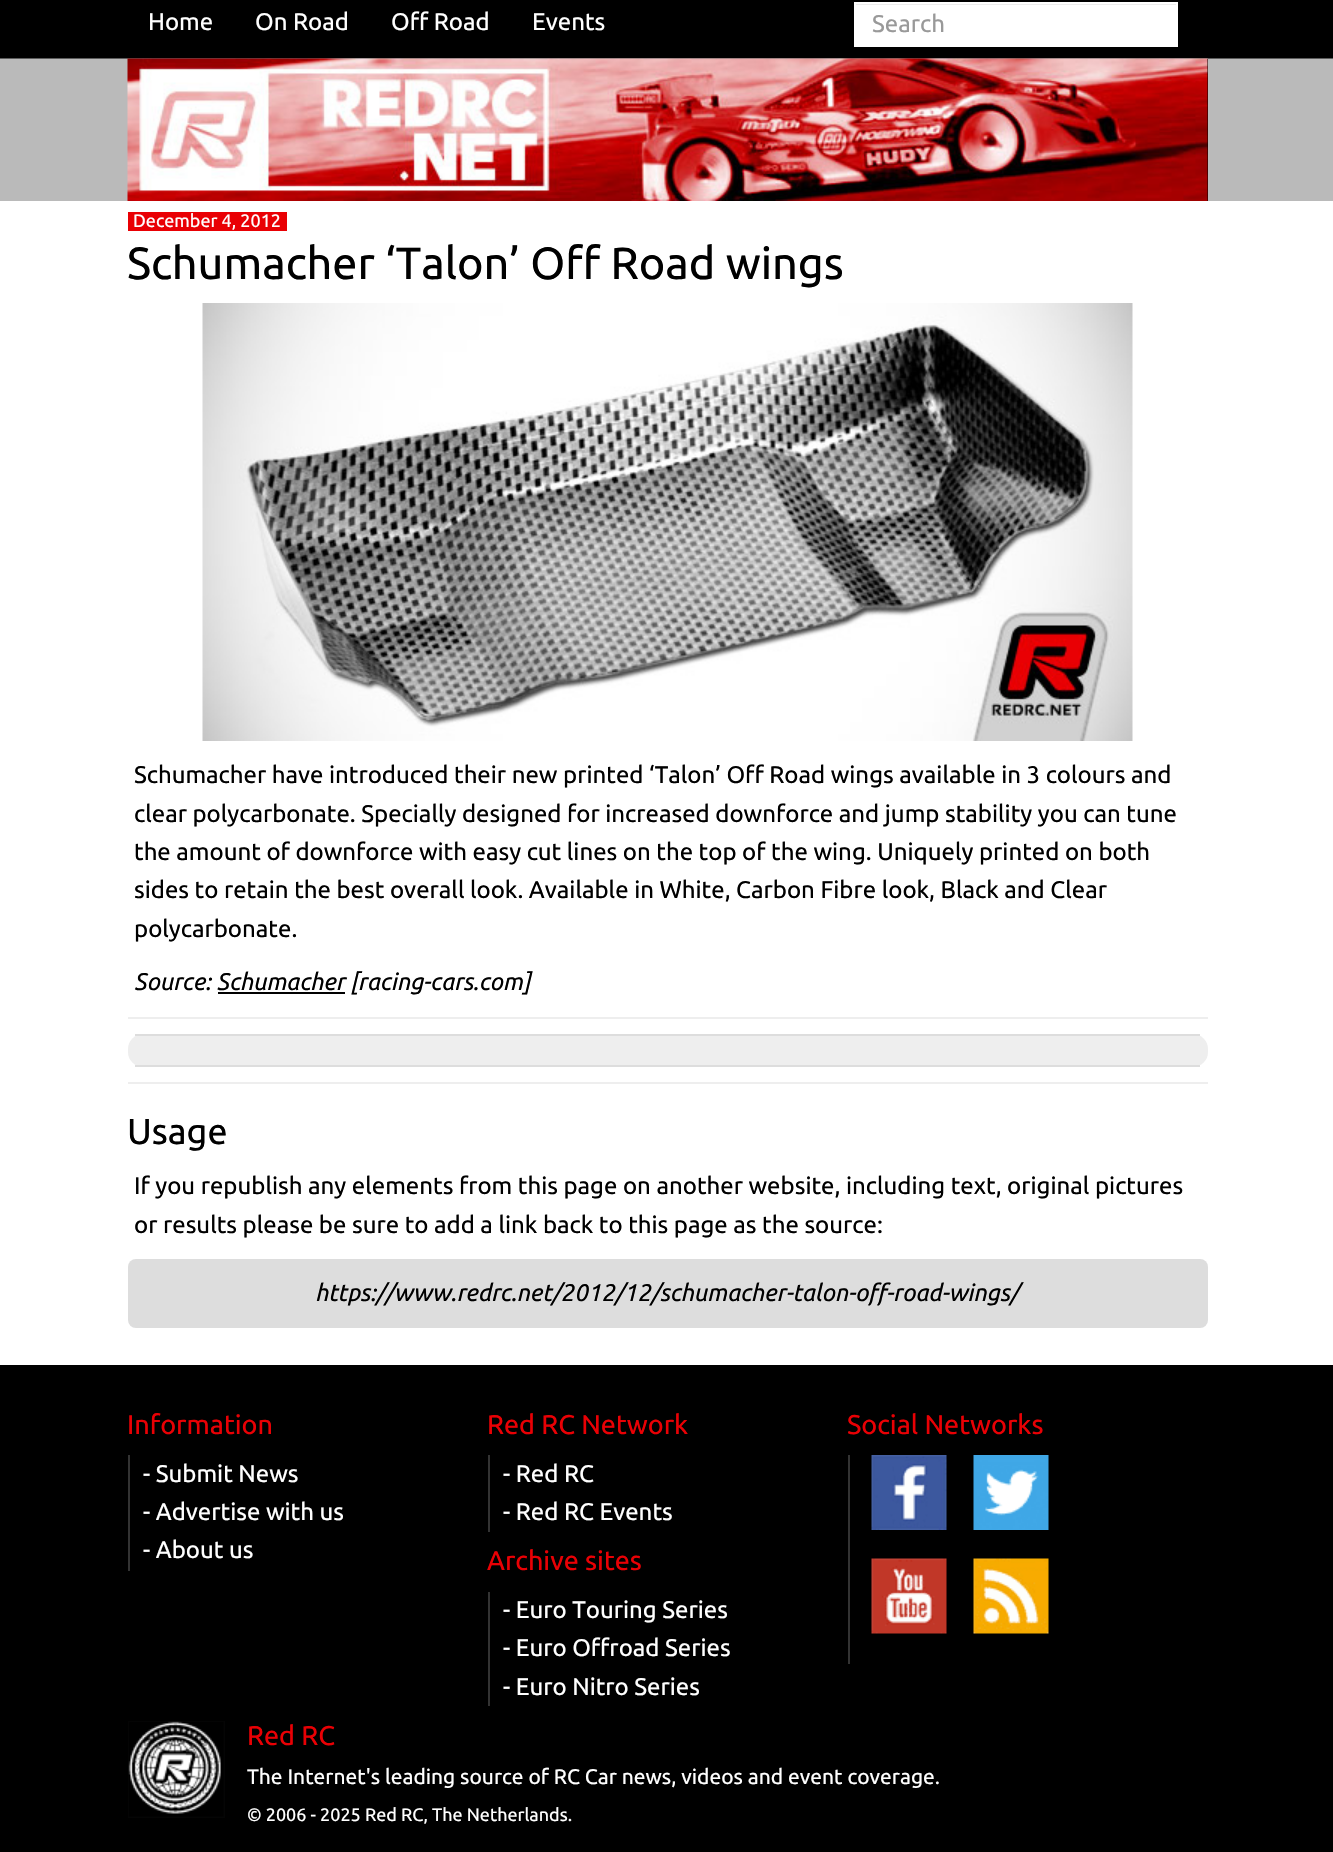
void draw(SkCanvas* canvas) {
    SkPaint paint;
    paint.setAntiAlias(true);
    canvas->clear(0xFFFFFFFF);
    canvas->drawImageRect(SkImages::DeferredFromEncodedData(SkData::MakeFromFileName("img1.png")), SkRect::MakeXYWH(0, 0, 1333, 201), SkSamplingOptions());
    SkFont font1(fontMgr->matchFamilyStyle("Ubuntu", SkFontStyle::Normal()), 24);
    font1.setSubpixel(true);
    paint.setColor(0xFFFFFFFF);
    canvas->drawString("Home", 148, 30, font1, paint);
    canvas->drawString("On Road", 255, 30, font1, paint);
    canvas->drawString("Off Road", 391, 30, font1, paint);
    canvas->drawString("Events", 532, 30, font1, paint);
    canvas->drawRect(SkRect::MakeXYWH(856, 5, 320, 40), paint);
    paint.setColor(0xFFECECEC);
    canvas->drawRect(SkRect::MakeXYWH(855, 4, 321, 1), paint);
    paint.setStyle(SkPaint::kStroke_Style);
    paint.setStrokeWidth(2);
    paint.setColor(0xFFFFFFFF);
    canvas->drawRect(SkRect::MakeXYWH(855, 3, 322, 43), paint);
    paint.setStyle(SkPaint::kFill_Style);
    paint.setColor(0xFF999999);
    canvas->drawString("Search", 872, 32, font1, paint);
    paint.setColor(0xFF000000);
    canvas->drawRect(SkRect::MakeXYWH(1207, 59, 1, 142), paint);
    canvas->drawImageRect(SkImages::DeferredFromEncodedData(SkData::MakeFromFileName("img2.png")), SkRect::MakeXYWH(127, 58, 1081, 143), SkSamplingOptions());
    paint.setColor(0xFFE90004);
    canvas->drawRect(SkRect::MakeXYWH(128, 212, 159, 19), paint);
    SkFont font2(fontMgr->matchFamilyStyle("Ubuntu", SkFontStyle::Normal()), 18);
    font2.setSubpixel(true);
    paint.setColor(0xFFFFFFFF);
    canvas->drawString("December 4, 2012", 133, 227, font2, paint);
    SkFont font3(fontMgr->matchFamilyStyle("Ubuntu", SkFontStyle::Normal()), 45);
    font3.setSubpixel(true);
    paint.setColor(0xFF000000);
    canvas->drawString("Schumacher ‘Talon’ Off Road wings", 127, 279, font3, paint);
    canvas->drawImageRect(SkImages::DeferredFromEncodedData(SkData::MakeFromFileName("img3.png")), SkRect::MakeXYWH(202, 303, 931, 438), SkSamplingOptions());
    canvas->drawString("Schumacher have introduced their new printed ‘Talon’ Off Road wings available in 3 colours and", 134, 783, font1, paint);
    canvas->drawString("clear polycarbonate. Specially designed for increased downforce and jump stability you can tune", 134, 822, font1, paint);
    canvas->drawString("the amount of downforce with easy cut lines on the top of the wing. Uniquely printed on both", 134, 860, font1, paint);
    canvas->drawString("sides to retain the best overall look. Available in White, Carbon Fibre look, Black and Clear", 134, 898, font1, paint);
    canvas->drawString("polycarbonate.", 134, 937, font1, paint);
    SkFont font4(fontMgr->matchFamilyStyle("Ubuntu", SkFontStyle::Italic()), 24);
    font4.setSubpixel(true);
    canvas->drawString("Source: Schumacher [racing-cars.com]", 134, 990, font4, paint);
    canvas->drawRect(SkRect::MakeXYWH(218, 992, 127, 2), paint);
    paint.setColor(0xFFEEEEEE);
    canvas->drawRect(SkRect::MakeXYWH(128, 1017, 1080, 2), paint);
    canvas->drawRoundRect(SkRect::MakeXYWH(128, 1034, 1080, 33), 15, 15, paint);
    paint.setColor(0xFFDDDDDD);
    canvas->drawRect(SkRect::MakeXYWH(135, 1034, 1065, 2), paint);
    canvas->drawRect(SkRect::MakeXYWH(135, 1065, 1065, 2), paint);
    paint.setColor(0xFFEEEEEE);
    canvas->drawRect(SkRect::MakeXYWH(128, 1082, 1080, 2), paint);
    SkFont font5(fontMgr->matchFamilyStyle("Ubuntu", SkFontStyle::Normal()), 36);
    font5.setSubpixel(true);
    paint.setColor(0xFF000000);
    canvas->drawString("Usage", 127, 1144, font5, paint);
    canvas->drawString("If you republish any elements from this page on another website, including text, original pictures", 134, 1194, font1, paint);
    canvas->drawString("or results please be sure to add a link back to this page as the source:", 134, 1233, font1, paint);
    paint.setColor(0xFFDDDDDD);
    canvas->drawRoundRect(SkRect::MakeXYWH(128, 1259, 1080, 69), 8, 8, paint);
    paint.setColor(0xFF000000);
    canvas->drawString("https://www.redrc.net/2012/12/schumacher-talon-off-road-wings/", 315, 1301, font4, paint);
    canvas->drawRect(SkRect::MakeXYWH(0, 1365, 1333, 487), paint);
    SkFont font6(fontMgr->matchFamilyStyle("Ubuntu", SkFontStyle::Normal()), 27);
    font6.setSubpixel(true);
    paint.setColor(0xFFE90004);
    canvas->drawString("Information", 127, 1434, font6, paint);
    paint.setColor(0xFF333333);
    canvas->drawRect(SkRect::MakeXYWH(128, 1455, 2, 116), paint);
    paint.setColor(0xFFFFFFFF);
    canvas->drawString("- Submit News", 143, 1482, font1, paint);
    canvas->drawString("- Advertise with us", 143, 1520, font1, paint);
    canvas->drawString("- About us", 143, 1558, font1, paint);
    paint.setColor(0xFFE90004);
    canvas->drawString("Red RC Network", 487, 1434, font6, paint);
    paint.setColor(0xFF333333);
    canvas->drawRect(SkRect::MakeXYWH(488, 1455, 2, 77), paint);
    paint.setColor(0xFFFFFFFF);
    canvas->drawString("- Red RC", 503, 1482, font1, paint);
    canvas->drawString("- Red RC Events", 503, 1520, font1, paint);
    paint.setColor(0xFFE90004);
    canvas->drawString("Archive sites", 487, 1570, font6, paint);
    paint.setColor(0xFF333333);
    canvas->drawRect(SkRect::MakeXYWH(488, 1592, 2, 114), paint);
    paint.setColor(0xFFFFFFFF);
    canvas->drawString("- Euro Touring Series", 503, 1618, font1, paint);
    canvas->drawString("- Euro Offroad Series", 503, 1656, font1, paint);
    canvas->drawString("- Euro Nitro Series", 503, 1695, font1, paint);
    paint.setColor(0xFFE90004);
    canvas->drawString("Social Networks", 847, 1434, font6, paint);
    paint.setColor(0xFF333333);
    canvas->drawRect(SkRect::MakeXYWH(848, 1455, 2, 209), paint);
    canvas->drawImageRect(SkImages::DeferredFromEncodedData(SkData::MakeFromFileName("img4.png")), SkRect::MakeXYWH(871, 1455, 76, 75), SkSamplingOptions());
    canvas->drawImageRect(SkImages::DeferredFromEncodedData(SkData::MakeFromFileName("img5.png")), SkRect::MakeXYWH(973, 1455, 76, 75), SkSamplingOptions());
    canvas->drawImageRect(SkImages::DeferredFromEncodedData(SkData::MakeFromFileName("img6.png")), SkRect::MakeXYWH(871, 1558, 76, 76), SkSamplingOptions());
    canvas->drawImageRect(SkImages::DeferredFromEncodedData(SkData::MakeFromFileName("img7.png")), SkRect::MakeXYWH(973, 1558, 76, 76), SkSamplingOptions());
    canvas->drawImageRect(SkImages::DeferredFromEncodedData(SkData::MakeFromFileName("img8.png")), SkRect::MakeXYWH(128, 1721, 97, 97), SkSamplingOptions());
    paint.setColor(0xFFE90004);
    canvas->drawString("Red RC", 247, 1745, font6, paint);
    SkFont font7(fontMgr->matchFamilyStyle("Ubuntu", SkFontStyle::Normal()), 21);
    font7.setSubpixel(true);
    paint.setColor(0xFFFFFFFF);
    canvas->drawString("The Internet's leading source of RC Car news, videos and event coverage.", 247, 1784, font7, paint);
    canvas->drawString("© 2006 - 2025 Red RC, The Netherlands.", 247, 1821, font2, paint);
}
